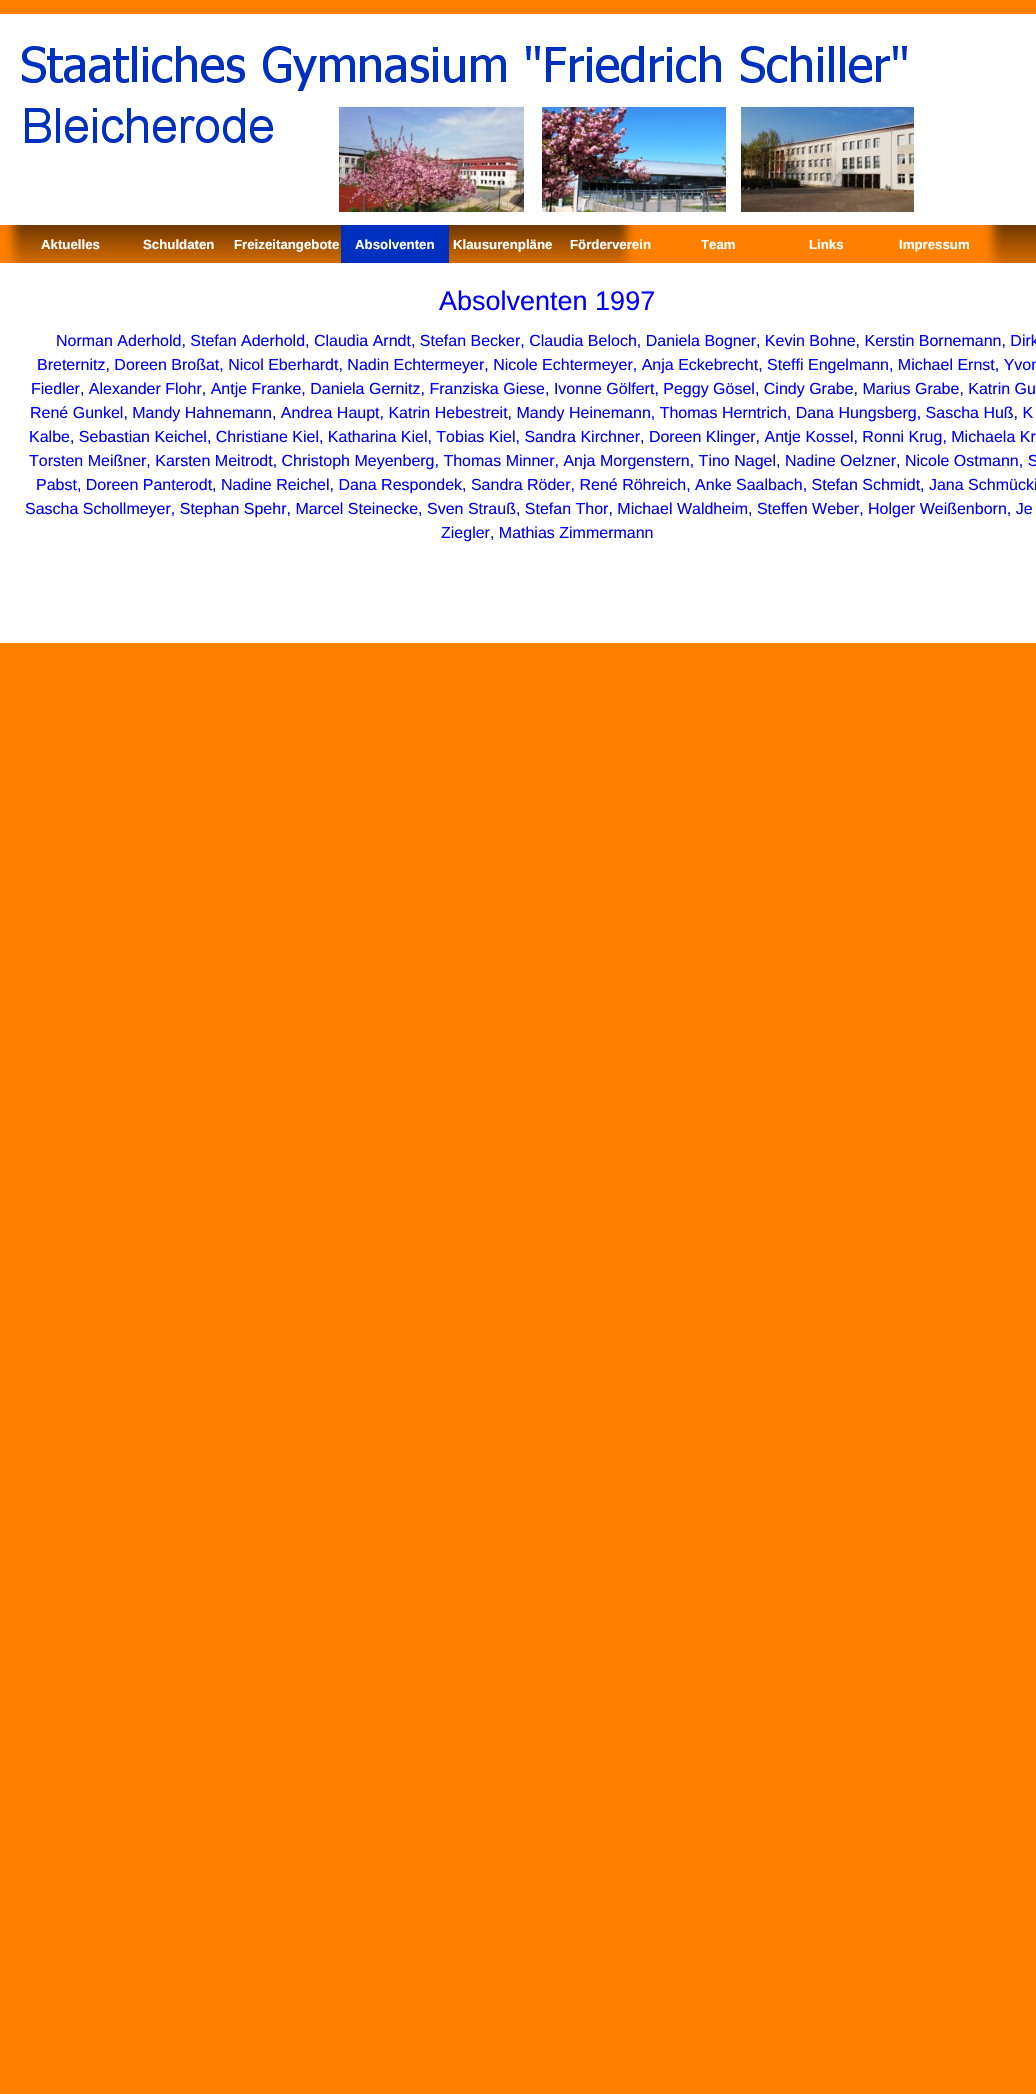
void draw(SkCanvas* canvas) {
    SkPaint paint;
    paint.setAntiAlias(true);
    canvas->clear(0xFFFF8000);
    canvas->drawImageRect(SkImages::DeferredFromEncodedData(SkData::MakeFromFileName("img1.png")), SkRect::MakeXYWH(0, 14, 1036, 249), SkSamplingOptions());
    canvas->drawImageRect(SkImages::DeferredFromEncodedData(SkData::MakeFromFileName("img2.png")), SkRect::MakeXYWH(22, 46, 885, 45), SkSamplingOptions());
    canvas->drawImageRect(SkImages::DeferredFromEncodedData(SkData::MakeFromFileName("img3.png")), SkRect::MakeXYWH(25, 108, 248, 35), SkSamplingOptions());
    canvas->drawImageRect(SkImages::DeferredFromEncodedData(SkData::MakeFromFileName("img4.png")), SkRect::MakeXYWH(339, 107, 185, 105), SkSamplingOptions());
    canvas->drawImageRect(SkImages::DeferredFromEncodedData(SkData::MakeFromFileName("img5.png")), SkRect::MakeXYWH(542, 107, 184, 105), SkSamplingOptions());
    canvas->drawImageRect(SkImages::DeferredFromEncodedData(SkData::MakeFromFileName("img6.png")), SkRect::MakeXYWH(741, 107, 173, 105), SkSamplingOptions());
    SkFont font1(fontMgr->matchFamilyStyle("Liberation Sans", SkFontStyle::Bold()), 13.25f);
    font1.setSubpixel(true);
    paint.setColor(0xFFFFFFFF);
    canvas->drawString("Aktuelles", 41, 249, font1, paint);
    canvas->drawString("Schuldaten", 143, 249, font1, paint);
    canvas->drawString("Freizeitangebote", 234, 249, font1, paint);
    paint.setColor(0xFF0030BF);
    canvas->drawRect(SkRect::MakeXYWH(341, 225, 108, 38), paint);
    paint.setColor(0xFFFFFFFF);
    canvas->drawString("Absolventen", 355, 249, font1, paint);
    canvas->drawString("Klausurenpläne", 453, 249, font1, paint);
    canvas->drawString("Förderverein", 570, 249, font1, paint);
    canvas->drawString("Team", 701, 249, font1, paint);
    canvas->drawString("Links", 809, 249, font1, paint);
    canvas->drawString("Impressum", 899, 249, font1, paint);
    canvas->drawRect(SkRect::MakeXYWH(0, 263, 1036, 380), paint);
    SkFont font2(fontMgr->matchFamilyStyle("Liberation Sans", SkFontStyle::Normal()), 27);
    font2.setSubpixel(true);
    paint.setColor(0xFF0000FF);
    canvas->drawString("Absolventen 1997", 439, 310, font2, paint);
    SkFont font3(fontMgr->matchFamilyStyle("Liberation Sans", SkFontStyle::Normal()), 16);
    font3.setSubpixel(true);
    canvas->drawString("Norman Aderhold, Stefan Aderhold, Claudia Arndt, Stefan Becker, Claudia Beloch, Daniela Bogner, Kevin Bohne, Kerstin Bornemann, Dirk", 56, 346, font3, paint);
    canvas->drawString("Breternitz, Doreen Broßat, Nicol Eberhardt, Nadin Echtermeyer, Nicole Echtermeyer, Anja Eckebrecht, Steffi Engelmann, Michael Ernst, Yvon", 37, 370, font3, paint);
    canvas->drawString("Fiedler, Alexander Flohr, Antje Franke, Daniela Gernitz, Franziska Giese, Ivonne Gölfert, Peggy Gösel, Cindy Grabe, Marius Grabe, Katrin Gu", 31, 394, font3, paint);
    canvas->drawString("René Gunkel, Mandy Hahnemann, Andrea Haupt, Katrin Hebestreit, Mandy Heinemann, Thomas Herntrich, Dana Hungsberg, Sascha Huß, K", 30, 418, font3, paint);
    canvas->drawString("Kalbe, Sebastian Keichel, Christiane Kiel, Katharina Kiel, Tobias Kiel, Sandra Kirchner, Doreen Klinger, Antje Kossel, Ronni Krug, Michaela Kr", 29, 442, font3, paint);
    canvas->drawString("Torsten Meißner, Karsten Meitrodt, Christoph Meyenberg, Thomas Minner, Anja Morgenstern, Tino Nagel, Nadine Oelzner, Nicole Ostmann, S", 29, 466, font3, paint);
    canvas->drawString("Pabst, Doreen Panterodt, Nadine Reichel, Dana Respondek, Sandra Röder, René Röhreich, Anke Saalbach, Stefan Schmidt, Jana Schmücki", 36, 490, font3, paint);
    canvas->drawString("Sascha Schollmeyer, Stephan Spehr, Marcel Steinecke, Sven Strauß, Stefan Thor, Michael Waldheim, Steffen Weber, Holger Weißenborn, Je", 25, 514, font3, paint);
    canvas->drawString("Ziegler, Mathias Zimmermann", 441, 538, font3, paint);
}
